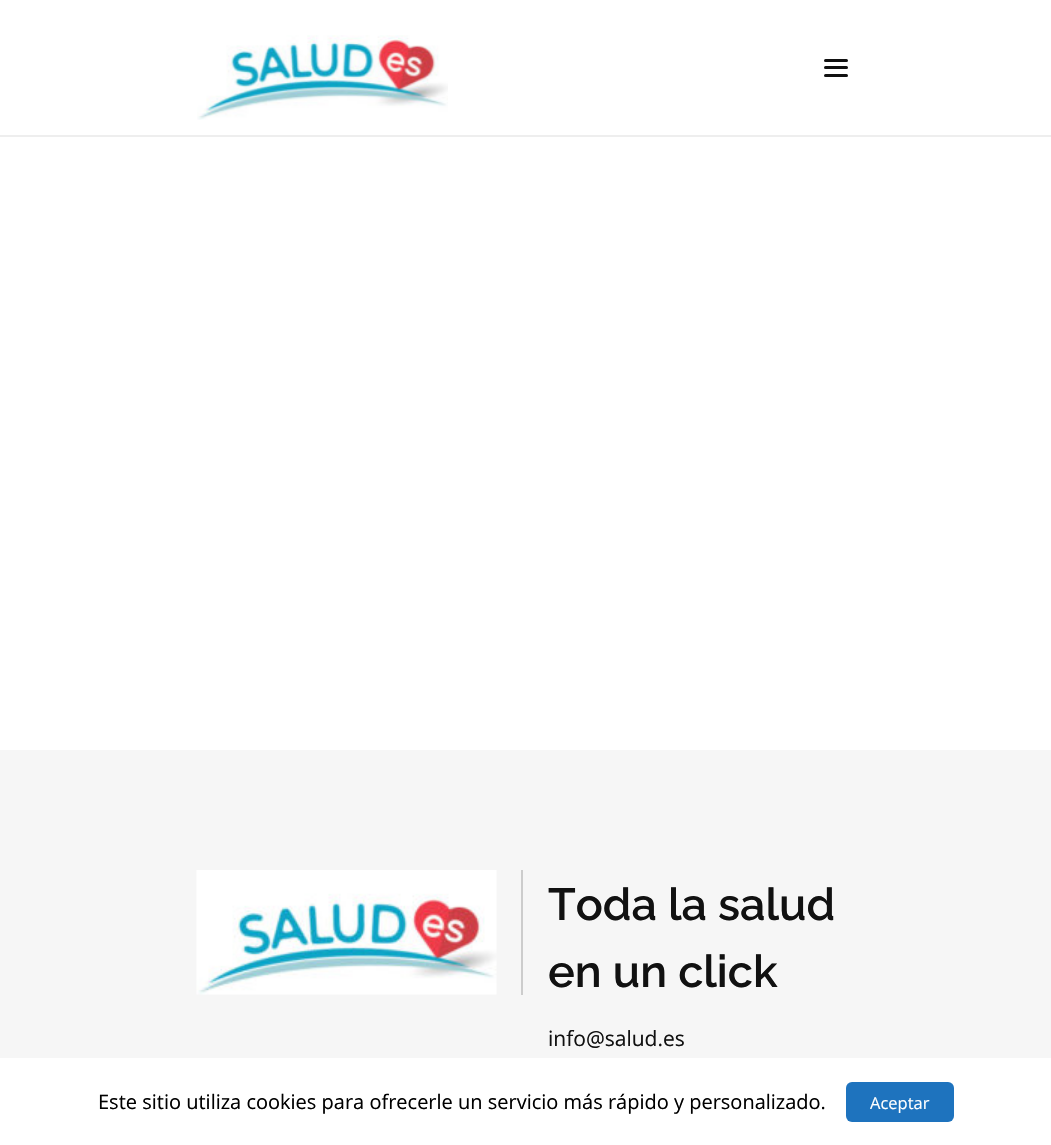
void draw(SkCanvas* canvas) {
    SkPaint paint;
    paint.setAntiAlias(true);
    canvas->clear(0xFFFFFFFF);
    paint.setColor(0xFFEEEEEE);
    canvas->drawRect(SkRect::MakeXYWH(0, 135, 1051, 2), paint);
    canvas->drawImageRect(SkImages::DeferredFromEncodedData(SkData::MakeFromFileName("img1.png")), SkRect::MakeXYWH(197, 35, 251, 85), SkSamplingOptions());
    paint.setColor(0xFF111111);
    canvas->drawRoundRect(SkRect::MakeXYWH(824, 66, 24, 3), 1.5f, 1.5f, paint);
    canvas->drawRoundRect(SkRect::MakeXYWH(824, 59, 24, 3), 1.5f, 1.5f, paint);
    canvas->drawRoundRect(SkRect::MakeXYWH(824, 74, 24, 3), 1.5f, 1.5f, paint);
    paint.setColor(0xFFF6F6F6);
    canvas->drawRect(SkRect::MakeXYWH(0, 750, 1051, 308), paint);
    paint.setColor(0xFFCCCCCC);
    canvas->drawRect(SkRect::MakeXYWH(521, 870, 2, 125), paint);
    canvas->drawImageRect(SkImages::DeferredFromEncodedData(SkData::MakeFromFileName("img2.png")), SkRect::MakeXYWH(196, 870, 301, 125), SkSamplingOptions());
    SkFont font1(fontMgr->matchFamilyStyle("Raleway", SkFontStyle(600, SkFontStyle::kNormal_Width, SkFontStyle::kUpright_Slant)), 45);
    font1.setSubpixel(true);
    paint.setColor(0xFF111111);
    canvas->drawString("Toda la salud", 548, 920, font1, paint);
    canvas->drawString("en un click", 548, 987, font1, paint);
    SkFont font2(fontMgr->matchFamilyStyle("Open Sans", SkFontStyle::Normal()), 21);
    font2.setSubpixel(true);
    canvas->drawString("info@salud.es", 548, 1046, font2, paint);
    SkFont font3(fontMgr->matchFamilyStyle("Open Sans", SkFontStyle::Normal()), 20);
    font3.setSubpixel(true);
    paint.setColor(0xFF000000);
    canvas->drawString("Este sitio utiliza cookies para ofrecerle un servicio más rápido y personalizado.", 98, 1109, font3, paint);
    paint.setColor(0xFF1E73BE);
    canvas->drawRoundRect(SkRect::MakeXYWH(846, 1082, 108, 40), 6, 6, paint);
    SkFont font4(fontMgr->matchFamilyStyle("Open Sans", SkFontStyle::Normal()), 16.5f);
    font4.setSubpixel(true);
    paint.setColor(0xFFFFFFFF);
    canvas->drawString("Aceptar", 870, 1109, font4, paint);
}
